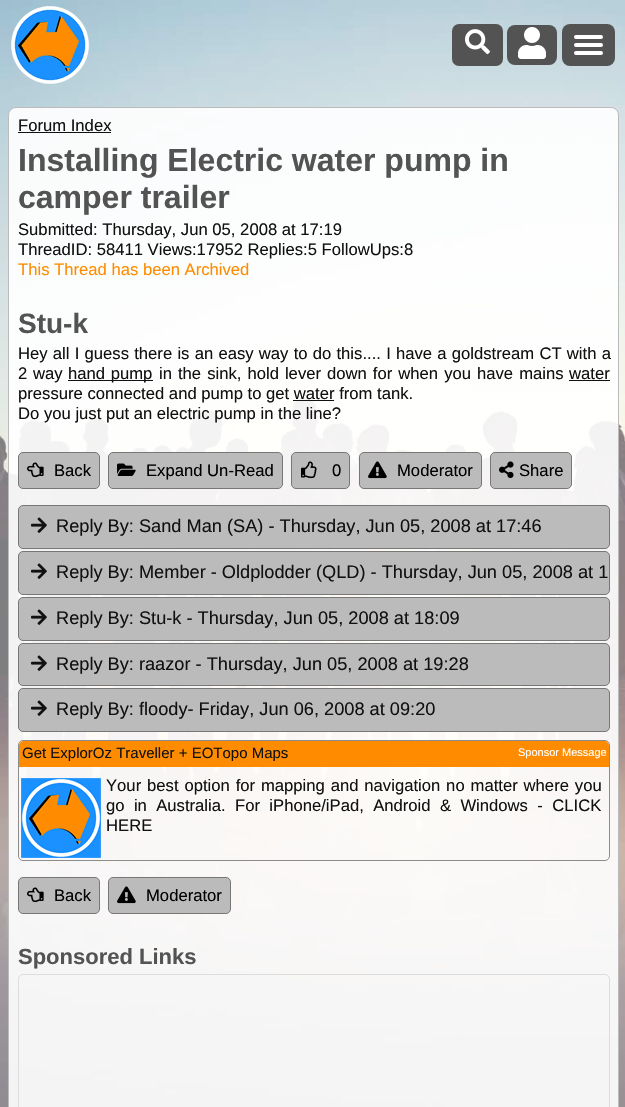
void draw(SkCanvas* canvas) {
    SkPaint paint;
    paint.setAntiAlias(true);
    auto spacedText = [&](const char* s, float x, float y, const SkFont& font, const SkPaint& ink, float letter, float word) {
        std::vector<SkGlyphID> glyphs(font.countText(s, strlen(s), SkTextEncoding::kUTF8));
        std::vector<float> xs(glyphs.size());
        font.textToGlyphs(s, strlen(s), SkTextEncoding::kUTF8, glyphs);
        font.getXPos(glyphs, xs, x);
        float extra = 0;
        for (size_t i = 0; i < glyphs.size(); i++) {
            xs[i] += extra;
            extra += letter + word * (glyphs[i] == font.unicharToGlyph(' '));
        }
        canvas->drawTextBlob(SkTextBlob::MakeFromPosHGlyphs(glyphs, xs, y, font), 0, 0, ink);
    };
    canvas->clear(0xFFFFFFFF);
    canvas->drawImageRect(SkImages::DeferredFromEncodedData(SkData::MakeFromFileName("img1.png")), SkRect::MakeXYWH(0, 0, 625, 1107), SkSamplingOptions());
    canvas->drawImageRect(SkImages::DeferredFromEncodedData(SkData::MakeFromFileName("img2.png")), SkRect::MakeXYWH(11, 6, 79, 78), SkSamplingOptions());
    paint.setColor(0xFF535353);
    canvas->drawRoundRect(SkRect::MakeXYWH(452, 24, 51, 42), 7, 7, paint);
    canvas->drawImageRect(SkImages::DeferredFromEncodedData(SkData::MakeFromFileName("img3.png")), SkRect::MakeXYWH(465, 29, 25, 26), SkSamplingOptions());
    canvas->drawRoundRect(SkRect::MakeXYWH(507, 25, 50, 40), 8, 8, paint);
    canvas->drawImageRect(SkImages::DeferredFromEncodedData(SkData::MakeFromFileName("img4.png")), SkRect::MakeXYWH(518, 27, 28, 32), SkSamplingOptions());
    canvas->drawRoundRect(SkRect::MakeXYWH(562, 24, 53, 42), 8, 8, paint);
    paint.setColor(0xFFFFFFFF);
    canvas->drawRoundRect(SkRect::MakeXYWH(574, 43, 29, 4), 2, 2, paint);
    canvas->drawRoundRect(SkRect::MakeXYWH(574, 35, 29, 4), 2, 2, paint);
    canvas->drawRoundRect(SkRect::MakeXYWH(574, 51, 29, 4), 2, 2, paint);
    paint.setColor(0xE6FFFFFF);
    canvas->drawRoundRect(SkRect::MakeXYWH(8.5f, 107.5f, 610, 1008), 7.5f, 7.5f, paint);
    paint.setStyle(SkPaint::kStroke_Style);
    paint.setStrokeWidth(1);
    paint.setColor(0xFFBBBBBB);
    canvas->drawRoundRect(SkRect::MakeXYWH(8.5f, 107.5f, 610, 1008), 7.5f, 7.5f, paint);
    SkFont font1(fontMgr->matchFamilyStyle("Liberation Sans", SkFontStyle::Normal()), 16.65f);
    font1.setSubpixel(true);
    paint.setStyle(SkPaint::kFill_Style);
    paint.setColor(0xFF111111);
    canvas->drawString("Forum Index", 18, 131, font1, paint);
    canvas->drawRect(SkRect::MakeXYWH(18, 132, 93, 1), paint);
    SkFont font2(fontMgr->matchFamilyStyle("Liberation Sans", SkFontStyle::Bold()), 32);
    font2.setSubpixel(true);
    paint.setColor(0xFF535353);
    canvas->drawString("Installing Electric water pump in", 18, 171, font2, paint);
    canvas->drawString("camper trailer", 18, 208, font2, paint);
    paint.setColor(0xFF111111);
    canvas->drawString("Submitted: Thursday, Jun 05, 2008 at 17:19", 18, 235, font1, paint);
    canvas->drawString("ThreadID: 58411 Views:17952 Replies:5 FollowUps:8", 18, 255, font1, paint);
    paint.setColor(0xFFFF8C00);
    canvas->drawString("This Thread has been Archived", 18, 275, font1, paint);
    SkFont font3(fontMgr->matchFamilyStyle("Liberation Sans", SkFontStyle::Bold()), 28);
    font3.setSubpixel(true);
    paint.setColor(0xFF535353);
    canvas->drawString("Stu-k", 18, 333, font3, paint);
    paint.setColor(0xFF111111);
    spacedText("Hey all I guess there is an easy way to do this.... I have a goldstream CT with a", 18, 359, font1, paint, 0, 0.6f);
    spacedText("2 way", 18, 379, font1, paint, 0, 1);
    canvas->drawRect(SkRect::MakeXYWH(68, 380, 85, 1), paint);
    spacedText("hand pump", 68, 379, font1, paint, 0, 1);
    spacedText("in the sink, hold lever down for when you have mains", 159, 379, font1, paint, 0, 1.4f);
    canvas->drawString("water", 569, 379, font1, paint);
    canvas->drawRect(SkRect::MakeXYWH(569, 380, 41, 1), paint);
    canvas->drawString("pressure connected and pump to get water from tank.", 18, 399, font1, paint);
    canvas->drawRect(SkRect::MakeXYWH(293, 400, 41, 1), paint);
    canvas->drawString("Do you just put an electric pump in the line?", 18, 419, font1, paint);
    paint.setColor(0xFFBBBBBB);
    canvas->drawRoundRect(SkRect::MakeXYWH(18.5f, 452.5f, 81, 36), 4.5f, 4.5f, paint);
    paint.setStyle(SkPaint::kStroke_Style);
    paint.setColor(0xFF777777);
    canvas->drawRoundRect(SkRect::MakeXYWH(18.5f, 452.5f, 81, 36), 4.5f, 4.5f, paint);
    canvas->drawImageRect(SkImages::DeferredFromEncodedData(SkData::MakeFromFileName("img5.png")), SkRect::MakeXYWH(27, 462, 17, 16), SkSamplingOptions());
    paint.setStyle(SkPaint::kFill_Style);
    paint.setColor(0xFF000000);
    canvas->drawString("Back", 54, 476, font1, paint);
    paint.setColor(0xFFBBBBBB);
    canvas->drawRoundRect(SkRect::MakeXYWH(108.5f, 452.5f, 174, 36), 4.5f, 4.5f, paint);
    paint.setStyle(SkPaint::kStroke_Style);
    paint.setColor(0xFF777777);
    canvas->drawRoundRect(SkRect::MakeXYWH(108.5f, 452.5f, 174, 36), 4.5f, 4.5f, paint);
    canvas->drawImageRect(SkImages::DeferredFromEncodedData(SkData::MakeFromFileName("img6.png")), SkRect::MakeXYWH(117, 463, 19, 13), SkSamplingOptions());
    paint.setStyle(SkPaint::kFill_Style);
    paint.setColor(0xFF000000);
    canvas->drawString("Expand Un-Read", 146, 476, font1, paint);
    paint.setColor(0xFFBBBBBB);
    canvas->drawRoundRect(SkRect::MakeXYWH(291.5f, 452.5f, 58, 36), 4.5f, 4.5f, paint);
    paint.setStyle(SkPaint::kStroke_Style);
    paint.setColor(0xFF777777);
    canvas->drawRoundRect(SkRect::MakeXYWH(291.5f, 452.5f, 58, 36), 4.5f, 4.5f, paint);
    canvas->drawImageRect(SkImages::DeferredFromEncodedData(SkData::MakeFromFileName("img7.png")), SkRect::MakeXYWH(301, 461, 16, 18), SkSamplingOptions());
    paint.setStyle(SkPaint::kFill_Style);
    paint.setColor(0xFF000000);
    canvas->drawString("0", 332, 476, font1, paint);
    paint.setColor(0xFFBBBBBB);
    canvas->drawRoundRect(SkRect::MakeXYWH(359.5f, 452.5f, 122, 36), 4.5f, 4.5f, paint);
    paint.setStyle(SkPaint::kStroke_Style);
    paint.setColor(0xFF777777);
    canvas->drawRoundRect(SkRect::MakeXYWH(359.5f, 452.5f, 122, 36), 4.5f, 4.5f, paint);
    canvas->drawImageRect(SkImages::DeferredFromEncodedData(SkData::MakeFromFileName("img8.png")), SkRect::MakeXYWH(368, 461, 19, 18), SkSamplingOptions());
    paint.setStyle(SkPaint::kFill_Style);
    paint.setColor(0xFF000000);
    canvas->drawString("Moderator", 397, 476, font1, paint);
    paint.setColor(0xFFBBBBBB);
    canvas->drawRoundRect(SkRect::MakeXYWH(490.5f, 452.5f, 81, 36), 4.5f, 4.5f, paint);
    paint.setStyle(SkPaint::kStroke_Style);
    paint.setColor(0xFF777777);
    canvas->drawRoundRect(SkRect::MakeXYWH(490.5f, 452.5f, 81, 36), 4.5f, 4.5f, paint);
    canvas->drawImageRect(SkImages::DeferredFromEncodedData(SkData::MakeFromFileName("img9.png")), SkRect::MakeXYWH(499, 461, 15, 18), SkSamplingOptions());
    paint.setStyle(SkPaint::kFill_Style);
    paint.setColor(0xFF000000);
    canvas->drawString("Share", 519, 476, font1, paint);
    paint.setColor(0xFFBBBBBB);
    canvas->drawRoundRect(SkRect::MakeXYWH(18.5f, 505.5f, 591, 43), 4.5f, 4.5f, paint);
    paint.setStyle(SkPaint::kStroke_Style);
    paint.setColor(0xFF777777);
    canvas->drawRoundRect(SkRect::MakeXYWH(18.5f, 505.5f, 591, 43), 4.5f, 4.5f, paint);
    canvas->drawImageRect(SkImages::DeferredFromEncodedData(SkData::MakeFromFileName("img10.png")), SkRect::MakeXYWH(31, 517, 16, 16), SkSamplingOptions());
    SkFont font4(fontMgr->matchFamilyStyle("Liberation Sans", SkFontStyle::Normal()), 18.2f);
    font4.setSubpixel(true);
    paint.setStyle(SkPaint::kFill_Style);
    paint.setColor(0xFF111111);
    canvas->drawString("Reply By: Sand Man (SA) - Thursday, Jun 05, 2008 at 17:46", 56, 532, font4, paint);
    paint.setColor(0xFFBBBBBB);
    canvas->drawRoundRect(SkRect::MakeXYWH(18.5f, 551.5f, 591, 43), 4.5f, 4.5f, paint);
    paint.setStyle(SkPaint::kStroke_Style);
    paint.setColor(0xFF777777);
    canvas->drawRoundRect(SkRect::MakeXYWH(18.5f, 551.5f, 591, 43), 4.5f, 4.5f, paint);
    canvas->drawImageRect(SkImages::DeferredFromEncodedData(SkData::MakeFromFileName("img10.png")), SkRect::MakeXYWH(31, 563, 16, 16), SkSamplingOptions());
    paint.setStyle(SkPaint::kFill_Style);
    paint.setColor(0xFF111111);
    canvas->drawString("Reply By: Member - Oldplodder (QLD) - Thursday, Jun 05, 2008 at 1", 56, 578, font4, paint);
    paint.setColor(0xFFBBBBBB);
    canvas->drawRoundRect(SkRect::MakeXYWH(18.5f, 597.5f, 591, 43), 4.5f, 4.5f, paint);
    paint.setStyle(SkPaint::kStroke_Style);
    paint.setColor(0xFF777777);
    canvas->drawRoundRect(SkRect::MakeXYWH(18.5f, 597.5f, 591, 43), 4.5f, 4.5f, paint);
    canvas->drawImageRect(SkImages::DeferredFromEncodedData(SkData::MakeFromFileName("img10.png")), SkRect::MakeXYWH(31, 609, 16, 16), SkSamplingOptions());
    paint.setStyle(SkPaint::kFill_Style);
    paint.setColor(0xFF111111);
    canvas->drawString("Reply By: Stu-k - Thursday, Jun 05, 2008 at 18:09", 56, 624, font4, paint);
    paint.setColor(0xFFBBBBBB);
    canvas->drawRoundRect(SkRect::MakeXYWH(18.5f, 643.5f, 591, 42), 4.5f, 4.5f, paint);
    paint.setStyle(SkPaint::kStroke_Style);
    paint.setColor(0xFF777777);
    canvas->drawRoundRect(SkRect::MakeXYWH(18.5f, 643.5f, 591, 42), 4.5f, 4.5f, paint);
    canvas->drawImageRect(SkImages::DeferredFromEncodedData(SkData::MakeFromFileName("img10.png")), SkRect::MakeXYWH(31, 655, 16, 16), SkSamplingOptions());
    paint.setStyle(SkPaint::kFill_Style);
    paint.setColor(0xFF111111);
    canvas->drawString("Reply By: raazor - Thursday, Jun 05, 2008 at 19:28", 56, 670, font4, paint);
    paint.setColor(0xFFBBBBBB);
    canvas->drawRoundRect(SkRect::MakeXYWH(18.5f, 688.5f, 591, 43), 4.5f, 4.5f, paint);
    paint.setStyle(SkPaint::kStroke_Style);
    paint.setColor(0xFF777777);
    canvas->drawRoundRect(SkRect::MakeXYWH(18.5f, 688.5f, 591, 43), 4.5f, 4.5f, paint);
    canvas->drawImageRect(SkImages::DeferredFromEncodedData(SkData::MakeFromFileName("img10.png")), SkRect::MakeXYWH(31, 700, 16, 16), SkSamplingOptions());
    paint.setStyle(SkPaint::kFill_Style);
    paint.setColor(0xFF111111);
    canvas->drawString("Reply By: floody- Friday, Jun 06, 2008 at 09:20", 56, 715, font4, paint);
    paint.setStyle(SkPaint::kStroke_Style);
    paint.setColor(0xFF8C8C8C);
    canvas->drawRoundRect(SkRect::MakeXYWH(18.5f, 740.5f, 591, 120), 4.5f, 4.5f, paint);
    paint.setStyle(SkPaint::kFill_Style);
    paint.setColor(0xFFFF8C00);
    canvas->drawPath(SkPathBuilder().moveTo(24, 741).lineTo(604, 741).cubicTo(607, 741, 609, 743, 609, 746).lineTo(609, 767).lineTo(19, 767).lineTo(19, 746).cubicTo(19, 743, 21, 741, 24, 741).close().detach(), paint);
    SkFont font5(fontMgr->matchFamilyStyle("Liberation Sans", SkFontStyle::Normal()), 15);
    font5.setSubpixel(true);
    paint.setColor(0xFF111111);
    canvas->drawString("Get ExplorOz Traveller + EOTopo Maps", 22, 758, font5, paint);
    SkFont font6(fontMgr->matchFamilyStyle("Liberation Sans", SkFontStyle::Normal()), 11);
    font6.setSubpixel(true);
    paint.setColor(0xFFFFFFFF);
    canvas->drawString("Sponsor Message", 518, 756, font6, paint);
    canvas->drawImageRect(SkImages::DeferredFromEncodedData(SkData::MakeFromFileName("img11.png")), SkRect::MakeXYWH(21, 778, 80, 80), SkSamplingOptions());
    paint.setColor(0xFF111111);
    spacedText("Your best option for mapping and navigation no matter where you", 106, 791, font1, paint, 0, 1.25f);
    spacedText("go in Australia. For iPhone/iPad, Android & Windows - CLICK", 106, 811, font1, paint, 0, 4.75f);
    canvas->drawString("HERE", 106, 831, font1, paint);
    paint.setColor(0xFFBBBBBB);
    canvas->drawRoundRect(SkRect::MakeXYWH(18.5f, 877.5f, 81, 36), 4.5f, 4.5f, paint);
    paint.setStyle(SkPaint::kStroke_Style);
    paint.setColor(0xFF777777);
    canvas->drawRoundRect(SkRect::MakeXYWH(18.5f, 877.5f, 81, 36), 4.5f, 4.5f, paint);
    canvas->drawImageRect(SkImages::DeferredFromEncodedData(SkData::MakeFromFileName("img5.png")), SkRect::MakeXYWH(27, 887, 17, 16), SkSamplingOptions());
    paint.setStyle(SkPaint::kFill_Style);
    paint.setColor(0xFF000000);
    canvas->drawString("Back", 54, 901, font1, paint);
    paint.setColor(0xFFBBBBBB);
    canvas->drawRoundRect(SkRect::MakeXYWH(108.5f, 877.5f, 122, 36), 4.5f, 4.5f, paint);
    paint.setStyle(SkPaint::kStroke_Style);
    paint.setColor(0xFF777777);
    canvas->drawRoundRect(SkRect::MakeXYWH(108.5f, 877.5f, 122, 36), 4.5f, 4.5f, paint);
    canvas->drawImageRect(SkImages::DeferredFromEncodedData(SkData::MakeFromFileName("img8.png")), SkRect::MakeXYWH(117, 886, 19, 18), SkSamplingOptions());
    paint.setStyle(SkPaint::kFill_Style);
    paint.setColor(0xFF000000);
    canvas->drawString("Moderator", 146, 901, font1, paint);
    SkFont font7(fontMgr->matchFamilyStyle("Liberation Sans", SkFontStyle::Bold()), 22);
    font7.setSubpixel(true);
    paint.setColor(0xFF535353);
    canvas->drawString("Sponsored Links", 18, 964, font7, paint);
    paint.setStyle(SkPaint::kStroke_Style);
    paint.setColor(0xFFDDDDDD);
    canvas->drawRoundRect(SkRect::MakeXYWH(18.5f, 974.5f, 591, 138), 4.5f, 4.5f, paint);
}
